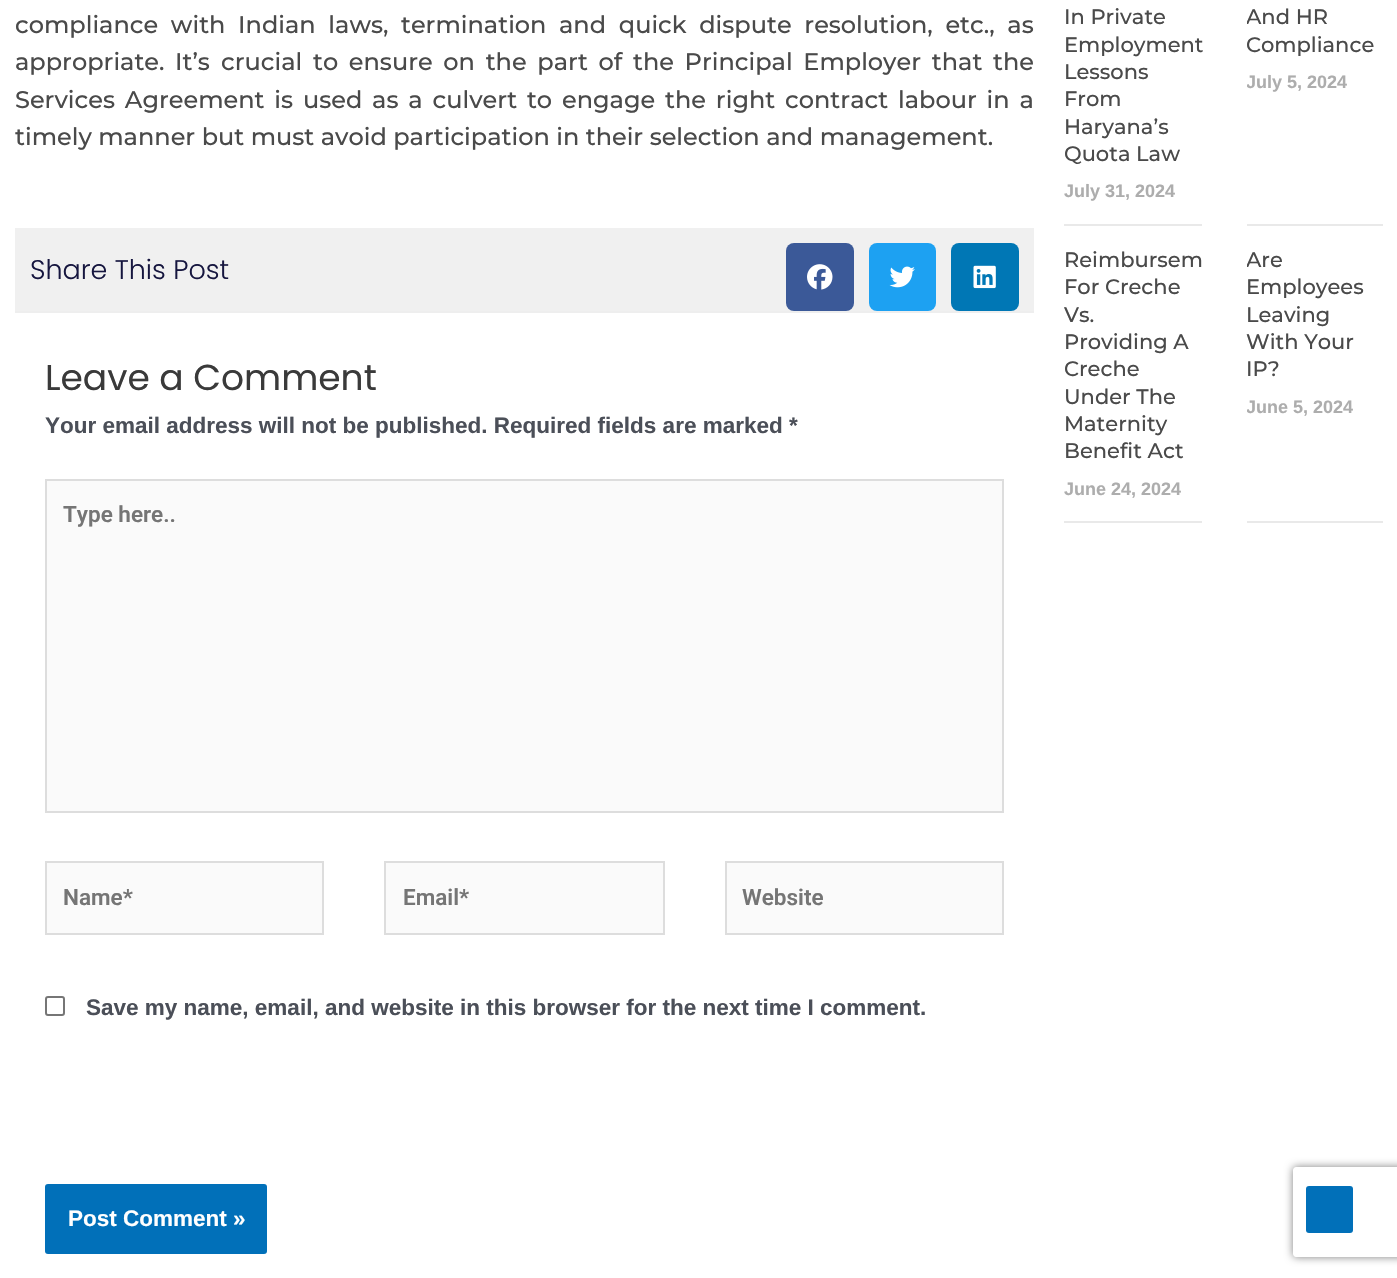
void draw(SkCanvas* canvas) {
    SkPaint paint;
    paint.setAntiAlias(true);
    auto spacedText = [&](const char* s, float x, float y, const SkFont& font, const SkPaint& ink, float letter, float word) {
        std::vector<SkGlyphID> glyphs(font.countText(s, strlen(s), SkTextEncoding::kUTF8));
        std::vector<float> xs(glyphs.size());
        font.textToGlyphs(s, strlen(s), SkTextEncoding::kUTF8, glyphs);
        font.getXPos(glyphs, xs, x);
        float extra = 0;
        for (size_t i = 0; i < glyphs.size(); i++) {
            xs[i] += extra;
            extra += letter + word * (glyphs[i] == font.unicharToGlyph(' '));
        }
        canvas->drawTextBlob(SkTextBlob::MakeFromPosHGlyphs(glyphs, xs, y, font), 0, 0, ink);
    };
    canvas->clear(0xFFFFFFFF);
    SkFont font1(fontMgr->matchFamilyStyle("Montserrat", SkFontStyle(500, SkFontStyle::kNormal_Width, SkFontStyle::kUpright_Slant)), 24);
    font1.setSubpixel(true);
    paint.setColor(0xFF4A4A4A);
    spacedText("compliance with Indian laws,", 15, 33, font1, paint, 0, 6.25f);
    canvas->drawString("termination", 401, 33, font1, paint);
    spacedText("and quick dispute resolution, etc., as", 559, 33, font1, paint, 0, 6.25f);
    canvas->drawString("appropriate.", 15, 70, font1, paint);
    canvas->drawString("It’s", 175, 70, font1, paint);
    spacedText("crucial to ensure on the part of the Principal Employer that the", 221, 70, font1, paint, 0, 4.25f);
    spacedText("Services Agreement is used as a culvert to engage the right contract labour in a", 15, 108, font1, paint, 0, 3.4f);
    canvas->drawString("timely manner but must avoid participation in their selection and management.", 15, 145, font1, paint);
    paint.setColor(0xFFF0F0F0);
    canvas->drawRect(SkRect::MakeXYWH(15, 228, 1019, 83), paint);
    SkFont font2(fontMgr->matchFamilyStyle("Poppins", SkFontStyle(300, SkFontStyle::kNormal_Width, SkFontStyle::kUpright_Slant)), 27);
    font2.setSubpixel(true);
    paint.setColor(0xFF16163F);
    canvas->drawString("Share This Post", 30, 279, font2, paint);
    paint.setColor(0xFF3B5998);
    canvas->drawRoundRect(SkRect::MakeXYWH(786, 243, 68, 68), 8, 8, paint);
    canvas->drawImageRect(SkImages::DeferredFromEncodedData(SkData::MakeFromFileName("img1.png")), SkRect::MakeXYWH(807, 264, 26, 26), SkSamplingOptions());
    paint.setColor(0xFF1DA1F2);
    canvas->drawRoundRect(SkRect::MakeXYWH(869, 243, 67, 68), 8, 8, paint);
    canvas->drawImageRect(SkImages::DeferredFromEncodedData(SkData::MakeFromFileName("img2.png")), SkRect::MakeXYWH(889, 266, 26, 22), SkSamplingOptions());
    paint.setColor(0xFF0077B5);
    canvas->drawRoundRect(SkRect::MakeXYWH(951, 243, 68, 68), 8, 8, paint);
    canvas->drawImageRect(SkImages::DeferredFromEncodedData(SkData::MakeFromFileName("img3.png")), SkRect::MakeXYWH(973, 265, 23, 24), SkSamplingOptions());
    paint.setColor(0xFFEEEEEE);
    canvas->drawRect(SkRect::MakeXYWH(15, 311, 1019, 2), paint);
    SkFont font3(fontMgr->matchFamilyStyle("Poppins", SkFontStyle::Normal()), 36);
    font3.setSubpixel(true);
    paint.setColor(0xFF3A3A3A);
    canvas->drawString("Leave a Comment", 45, 390, font3, paint);
    SkFont font4(fontMgr->matchFamilyStyle("Liberation Sans", SkFontStyle::Bold()), 22.5f);
    font4.setSubpixel(true);
    paint.setColor(0xFF4B4F58);
    canvas->drawString("Your email address will not be published. Required fields are marked *", 45, 433, font4, paint);
    paint.setColor(0xFFFAFAFA);
    canvas->drawRect(SkRect::MakeXYWH(46, 480, 957, 332), paint);
    paint.setStyle(SkPaint::kStroke_Style);
    paint.setStrokeWidth(2);
    paint.setColor(0xFFDDDDDD);
    canvas->drawRect(SkRect::MakeXYWH(46, 480, 957, 332), paint);
    SkFont font5(fontMgr->matchFamilyStyle("Roboto", SkFontStyle(600, SkFontStyle::kNormal_Width, SkFontStyle::kUpright_Slant)), 22.5f);
    font5.setSubpixel(true);
    paint.setStyle(SkPaint::kFill_Style);
    paint.setColor(0xFF757575);
    canvas->drawString("Type here..", 63, 522, font5, paint);
    paint.setColor(0xFFFAFAFA);
    canvas->drawRect(SkRect::MakeXYWH(46, 862, 277, 72), paint);
    paint.setStyle(SkPaint::kStroke_Style);
    paint.setColor(0xFFDDDDDD);
    canvas->drawRect(SkRect::MakeXYWH(46, 862, 277, 72), paint);
    paint.setStyle(SkPaint::kFill_Style);
    paint.setColor(0xFF757575);
    canvas->drawString("Name*", 63, 905, font5, paint);
    paint.setColor(0xFFFAFAFA);
    canvas->drawRect(SkRect::MakeXYWH(385, 862, 279, 72), paint);
    paint.setStyle(SkPaint::kStroke_Style);
    paint.setColor(0xFFDDDDDD);
    canvas->drawRect(SkRect::MakeXYWH(385, 862, 279, 72), paint);
    paint.setStyle(SkPaint::kFill_Style);
    paint.setColor(0xFF757575);
    canvas->drawString("Email*", 403, 905, font5, paint);
    paint.setColor(0xFFFAFAFA);
    canvas->drawRect(SkRect::MakeXYWH(726, 862, 277, 72), paint);
    paint.setStyle(SkPaint::kStroke_Style);
    paint.setColor(0xFFDDDDDD);
    canvas->drawRect(SkRect::MakeXYWH(726, 862, 277, 72), paint);
    paint.setStyle(SkPaint::kFill_Style);
    paint.setColor(0xFF757575);
    canvas->drawString("Website", 742, 905, font5, paint);
    paint.setStyle(SkPaint::kStroke_Style);
    paint.setColor(0xFF767676);
    canvas->drawRoundRect(SkRect::MakeXYWH(46, 997, 18, 18), 2, 2, paint);
    paint.setStyle(SkPaint::kFill_Style);
    paint.setColor(0xFF4B4F58);
    canvas->drawString("Save my name, email, and website in this browser for the next time I comment.", 86, 1015, font4, paint);
    paint.setColor(0xFF0170B9);
    canvas->drawRoundRect(SkRect::MakeXYWH(45, 1184, 222, 70), 3, 3, paint);
    paint.setColor(0xFFFFFFFF);
    canvas->drawString("Post Comment »", 68, 1226, font4, paint);
    paint.setColor(0xFFE9E9E9);
    canvas->drawRect(SkRect::MakeXYWH(1064, 224, 138, 2), paint);
    SkFont font6(fontMgr->matchFamilyStyle("Montserrat", SkFontStyle(500, SkFontStyle::kNormal_Width, SkFontStyle::kUpright_Slant)), 21);
    font6.setSubpixel(true);
    paint.setColor(0xFF4A4A4A);
    canvas->drawString("In Private", 1064, 24, font6, paint);
    canvas->drawString("Employment", 1064, 52, font6, paint);
    canvas->drawString("Lessons", 1064, 79, font6, paint);
    canvas->drawString("From", 1064, 106, font6, paint);
    canvas->drawString("Haryana’s", 1064, 134, font6, paint);
    canvas->drawString("Quota Law", 1064, 161, font6, paint);
    SkFont font7(fontMgr->matchFamilyStyle("Liberation Sans", SkFontStyle::Bold()), 18);
    font7.setSubpixel(true);
    paint.setColor(0xFFADADAD);
    canvas->drawString("July 31, 2024", 1064, 197, font7, paint);
    paint.setColor(0xFFE9E9E9);
    canvas->drawRect(SkRect::MakeXYWH(1247, 224, 136, 2), paint);
    canvas->save();
    canvas->clipRect(SkRect::MakeXYWH(1247, 0, 136, 224));
    paint.setColor(0xFF4A4A4A);
    canvas->drawString("And HR", 1246, 24, font6, paint);
    canvas->drawString("Compliance", 1246, 52, font6, paint);
    paint.setColor(0xFFADADAD);
    canvas->drawString("July 5, 2024", 1246, 88, font7, paint);
    canvas->restore();
    paint.setColor(0xFFE9E9E9);
    canvas->drawRect(SkRect::MakeXYWH(1064, 521, 138, 2), paint);
    paint.setColor(0xFF4A4A4A);
    canvas->drawString("Reimbursem", 1064, 267, font6, paint);
    canvas->drawString("For Creche", 1064, 294, font6, paint);
    canvas->drawString("Vs.", 1064, 322, font6, paint);
    canvas->drawString("Providing A", 1064, 349, font6, paint);
    canvas->drawString("Creche", 1064, 376, font6, paint);
    canvas->drawString("Under The", 1064, 404, font6, paint);
    canvas->drawString("Maternity", 1064, 431, font6, paint);
    canvas->drawString("Benefit Act", 1064, 458, font6, paint);
    paint.setColor(0xFFADADAD);
    canvas->drawString("June 24, 2024", 1064, 495, font7, paint);
    paint.setColor(0xFFE9E9E9);
    canvas->drawRect(SkRect::MakeXYWH(1247, 521, 136, 2), paint);
    canvas->save();
    canvas->clipRect(SkRect::MakeXYWH(1247, 246, 136, 275));
    paint.setColor(0xFF4A4A4A);
    canvas->drawString("Are", 1246, 267, font6, paint);
    canvas->restore();
    canvas->drawString("Employees", 1246, 294, font6, paint);
    canvas->drawString("Leaving", 1246, 322, font6, paint);
    canvas->drawString("With Your", 1246, 349, font6, paint);
    canvas->drawString("IP?", 1246, 376, font6, paint);
    canvas->save();
    canvas->clipRect(SkRect::MakeXYWH(1247, 246, 136, 275));
    paint.setColor(0xFFADADAD);
    canvas->drawString("June 5, 2024", 1246, 413, font7, paint);
    canvas->restore();
    canvas->save();
    canvas->clipPath(SkPathBuilder(SkPathFillType::kEvenOdd).moveTo(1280, 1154).lineTo(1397, 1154).lineTo(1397, 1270).lineTo(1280, 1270).close().moveTo(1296, 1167).lineTo(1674, 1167).cubicTo(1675.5f, 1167, 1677, 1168.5f, 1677, 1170).lineTo(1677, 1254).cubicTo(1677, 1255.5f, 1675.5f, 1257, 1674, 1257).lineTo(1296, 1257).cubicTo(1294.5f, 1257, 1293, 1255.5f, 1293, 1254).lineTo(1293, 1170).cubicTo(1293, 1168.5f, 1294.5f, 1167, 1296, 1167).close().detach(), true);
    paint.setColor(0xFF808080);
    paint.setMaskFilter(SkMaskFilter::MakeBlur(kNormal_SkBlurStyle, 4));
    canvas->drawRoundRect(SkRect::MakeXYWH(1293, 1167, 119, 90), 3, 3, paint);
    paint.setMaskFilter(nullptr);
    canvas->restore();
    paint.setColor(0xFF0170B9);
    canvas->drawPath(SkPathBuilder().moveTo(1350, 1233).lineTo(1309, 1233).cubicTo(1307, 1233, 1306, 1232, 1306, 1230).lineTo(1306, 1189).cubicTo(1306, 1187, 1307, 1186, 1309, 1186).lineTo(1350, 1186).cubicTo(1352, 1186, 1353, 1187, 1353, 1189).lineTo(1353, 1230).cubicTo(1353, 1232, 1352, 1233, 1350, 1233).close().detach(), paint);
}
